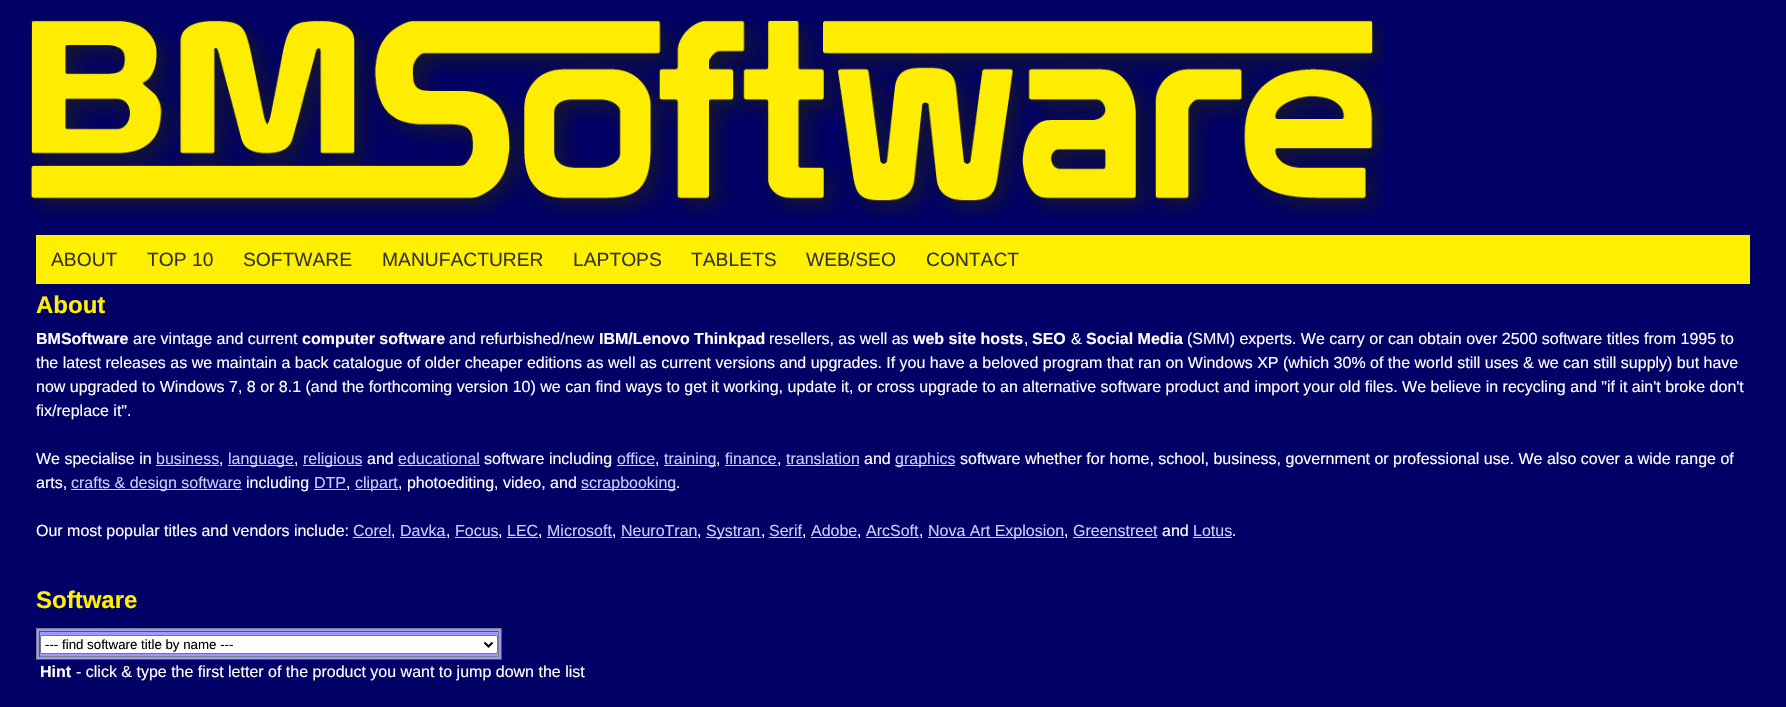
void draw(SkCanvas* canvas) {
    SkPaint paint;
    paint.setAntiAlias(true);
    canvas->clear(0xFF000066);
    canvas->drawImageRect(SkImages::DeferredFromEncodedData(SkData::MakeFromFileName("img1.png")), SkRect::MakeXYWH(24, 14, 1360, 201), SkSamplingOptions());
    paint.setColor(0xFFFFF000);
    canvas->drawRect(SkRect::MakeXYWH(36, 235, 1714, 49), paint);
    SkFont font1(fontMgr->matchFamilyStyle("Liberation Sans", SkFontStyle::Normal()), 19.25f);
    font1.setSubpixel(true);
    paint.setColor(0xFF333333);
    canvas->drawString("ABOUT", 51, 266, font1, paint);
    canvas->drawString("TOP 10", 147, 266, font1, paint);
    canvas->drawString("SOFTWARE", 243, 266, font1, paint);
    canvas->drawString("MANUFACTURER", 382, 266, font1, paint);
    canvas->drawString("LAPTOPS", 573, 266, font1, paint);
    canvas->drawString("TABLETS", 691, 266, font1, paint);
    canvas->drawString("WEB/SEO", 806, 266, font1, paint);
    canvas->drawString("CONTACT", 926, 266, font1, paint);
    SkFont font2(fontMgr->matchFamilyStyle("Liberation Sans", SkFontStyle::Bold()), 24);
    font2.setSubpixel(true);
    paint.setColor(0xFFFFF000);
    canvas->drawString("About", 36, 313, font2, paint);
    SkFont font3(fontMgr->matchFamilyStyle("Liberation Sans", SkFontStyle::Bold()), 16);
    font3.setSubpixel(true);
    paint.setColor(0xFFFFFFFF);
    canvas->drawString("BMSoftware", 36, 344, font3, paint);
    SkFont font4(fontMgr->matchFamilyStyle("Liberation Sans", SkFontStyle::Normal()), 16);
    font4.setSubpixel(true);
    canvas->drawString("are vintage and current", 133, 344, font4, paint);
    canvas->drawString("computer software", 302, 344, font3, paint);
    canvas->drawString("and refurbished/new", 449, 344, font4, paint);
    canvas->drawString("IBM/Lenovo Thinkpad", 599, 344, font3, paint);
    canvas->drawString("resellers, as well as", 769, 344, font4, paint);
    canvas->drawString("web site hosts", 913, 344, font3, paint);
    canvas->drawString(",", 1024, 344, font4, paint);
    canvas->drawString("SEO", 1032, 344, font3, paint);
    canvas->drawString("&", 1071, 344, font4, paint);
    canvas->drawString("Social Media", 1086, 344, font3, paint);
    canvas->drawString("(SMM) experts. We carry or can obtain over 2500 software titles from 1995 to", 1187, 344, font4, paint);
    canvas->drawString("the latest releases as we maintain a back catalogue of older cheaper editions as well as current versions and upgrades. If you have a beloved program that ran on Windows XP (which 30% of the world still uses & we can still supply) but have", 36, 368, font4, paint);
    canvas->drawString("now upgraded to Windows 7, 8 or 8.1 (and the forthcoming version 10) we can find ways to get it working, update it, or cross upgrade to an alternative software product and import your old files. We believe in recycling and \"if it ain't broke don't", 36, 392, font4, paint);
    canvas->drawString("fix/replace it\".", 36, 416, font4, paint);
    canvas->drawString("We specialise in", 36, 464, font4, paint);
    paint.setColor(0xFFCCCCFF);
    canvas->drawString("business", 156, 464, font4, paint);
    canvas->drawRect(SkRect::MakeXYWH(156, 465, 63, 1), paint);
    paint.setColor(0xFFFFFFFF);
    canvas->drawString(",", 219, 464, font4, paint);
    paint.setColor(0xFFCCCCFF);
    canvas->drawRect(SkRect::MakeXYWH(228, 465, 66, 1), paint);
    canvas->drawString("language", 228, 464, font4, paint);
    paint.setColor(0xFFFFFFFF);
    canvas->drawString(",", 294, 464, font4, paint);
    paint.setColor(0xFFCCCCFF);
    canvas->drawRect(SkRect::MakeXYWH(303, 465, 59, 1), paint);
    canvas->drawString("religious", 303, 464, font4, paint);
    paint.setColor(0xFFFFFFFF);
    canvas->drawString("and", 367, 464, font4, paint);
    paint.setColor(0xFFCCCCFF);
    canvas->drawString("educational", 398, 464, font4, paint);
    canvas->drawRect(SkRect::MakeXYWH(398, 465, 82, 1), paint);
    paint.setColor(0xFFFFFFFF);
    canvas->drawString("software including", 484, 464, font4, paint);
    paint.setColor(0xFFCCCCFF);
    canvas->drawString("office", 617, 464, font4, paint);
    canvas->drawRect(SkRect::MakeXYWH(617, 465, 38, 1), paint);
    paint.setColor(0xFFFFFFFF);
    canvas->drawString(",", 655, 464, font4, paint);
    paint.setColor(0xFFCCCCFF);
    canvas->drawRect(SkRect::MakeXYWH(664, 465, 52, 1), paint);
    canvas->drawString("training", 664, 464, font4, paint);
    paint.setColor(0xFFFFFFFF);
    canvas->drawString(",", 716, 464, font4, paint);
    paint.setColor(0xFFCCCCFF);
    canvas->drawString("finance", 725, 464, font4, paint);
    canvas->drawRect(SkRect::MakeXYWH(725, 465, 52, 1), paint);
    paint.setColor(0xFFFFFFFF);
    canvas->drawString(",", 777, 464, font4, paint);
    paint.setColor(0xFFCCCCFF);
    canvas->drawString("translation", 786, 464, font4, paint);
    canvas->drawRect(SkRect::MakeXYWH(786, 465, 73, 1), paint);
    paint.setColor(0xFFFFFFFF);
    canvas->drawString("and", 864, 464, font4, paint);
    paint.setColor(0xFFCCCCFF);
    canvas->drawRect(SkRect::MakeXYWH(895, 465, 60, 1), paint);
    canvas->drawString("graphics", 895, 464, font4, paint);
    paint.setColor(0xFFFFFFFF);
    canvas->drawString("software whether for home, school, business, government or professional use. We also cover a wide range of", 960, 464, font4, paint);
    canvas->drawString("arts,", 36, 488, font4, paint);
    paint.setColor(0xFFCCCCFF);
    canvas->drawRect(SkRect::MakeXYWH(71, 489, 171, 1), paint);
    canvas->drawString("crafts & design software", 71, 488, font4, paint);
    paint.setColor(0xFFFFFFFF);
    canvas->drawString("including", 246, 488, font4, paint);
    paint.setColor(0xFFCCCCFF);
    canvas->drawString("DTP", 314, 488, font4, paint);
    canvas->drawRect(SkRect::MakeXYWH(314, 489, 32, 1), paint);
    canvas->drawRect(SkRect::MakeXYWH(355, 489, 43, 1), paint);
    canvas->drawString("clipart", 355, 488, font4, paint);
    paint.setColor(0xFFFFFFFF);
    canvas->drawString(", photoediting, video, and", 398, 488, font4, paint);
    paint.setColor(0xFFCCCCFF);
    canvas->drawRect(SkRect::MakeXYWH(581, 489, 95, 1), paint);
    canvas->drawString("scrapbooking", 581, 488, font4, paint);
    paint.setColor(0xFFFFFFFF);
    canvas->drawString(",", 346, 488, font4, paint);
    canvas->drawString(".", 676, 488, font4, paint);
    canvas->drawString("Our most popular titles and vendors include:", 36, 536, font4, paint);
    paint.setColor(0xFFCCCCFF);
    canvas->drawString("Corel", 353, 536, font4, paint);
    canvas->drawRect(SkRect::MakeXYWH(353, 537, 38, 1), paint);
    paint.setColor(0xFFFFFFFF);
    canvas->drawString(",", 391, 536, font4, paint);
    paint.setColor(0xFFCCCCFF);
    canvas->drawString("Davka", 400, 536, font4, paint);
    canvas->drawRect(SkRect::MakeXYWH(400, 537, 46, 1), paint);
    paint.setColor(0xFFFFFFFF);
    canvas->drawString(",", 446, 536, font4, paint);
    paint.setColor(0xFFCCCCFF);
    canvas->drawString("Focus", 455, 536, font4, paint);
    canvas->drawRect(SkRect::MakeXYWH(455, 537, 43, 1), paint);
    paint.setColor(0xFFFFFFFF);
    canvas->drawString(",", 498, 536, font4, paint);
    paint.setColor(0xFFCCCCFF);
    canvas->drawString("LEC", 507, 536, font4, paint);
    canvas->drawRect(SkRect::MakeXYWH(507, 537, 31, 1), paint);
    paint.setColor(0xFFFFFFFF);
    canvas->drawString(",", 538, 536, font4, paint);
    paint.setColor(0xFFCCCCFF);
    canvas->drawString("Microsoft", 547, 536, font4, paint);
    canvas->drawRect(SkRect::MakeXYWH(547, 537, 65, 1), paint);
    paint.setColor(0xFFFFFFFF);
    canvas->drawString(",", 612, 536, font4, paint);
    paint.setColor(0xFFCCCCFF);
    canvas->drawString("NeuroTran", 621, 536, font4, paint);
    canvas->drawRect(SkRect::MakeXYWH(621, 537, 76, 1), paint);
    paint.setColor(0xFFFFFFFF);
    canvas->drawString(",", 697, 536, font4, paint);
    paint.setColor(0xFFCCCCFF);
    canvas->drawRect(SkRect::MakeXYWH(706, 537, 55, 1), paint);
    canvas->drawString("Systran", 706, 536, font4, paint);
    paint.setColor(0xFFFFFFFF);
    canvas->drawString(",", 761, 536, font4, paint);
    paint.setColor(0xFFCCCCFF);
    canvas->drawString("Serif", 769, 536, font4, paint);
    canvas->drawRect(SkRect::MakeXYWH(769, 537, 33, 1), paint);
    paint.setColor(0xFFFFFFFF);
    canvas->drawString(",", 802, 536, font4, paint);
    paint.setColor(0xFFCCCCFF);
    canvas->drawString("Adobe", 811, 536, font4, paint);
    canvas->drawRect(SkRect::MakeXYWH(811, 537, 46, 1), paint);
    paint.setColor(0xFFFFFFFF);
    canvas->drawString(",", 857, 536, font4, paint);
    paint.setColor(0xFFCCCCFF);
    canvas->drawString("ArcSoft", 866, 536, font4, paint);
    canvas->drawRect(SkRect::MakeXYWH(866, 537, 53, 1), paint);
    paint.setColor(0xFFFFFFFF);
    canvas->drawString(",", 919, 536, font4, paint);
    paint.setColor(0xFFCCCCFF);
    canvas->drawRect(SkRect::MakeXYWH(928, 537, 136, 1), paint);
    canvas->drawString("Nova Art Explosion", 928, 536, font4, paint);
    paint.setColor(0xFFFFFFFF);
    canvas->drawString(",", 1064, 536, font4, paint);
    paint.setColor(0xFFCCCCFF);
    canvas->drawString("Greenstreet", 1073, 536, font4, paint);
    canvas->drawRect(SkRect::MakeXYWH(1073, 537, 84, 1), paint);
    paint.setColor(0xFFFFFFFF);
    canvas->drawString("and", 1162, 536, font4, paint);
    paint.setColor(0xFFCCCCFF);
    canvas->drawString("Lotus", 1193, 536, font4, paint);
    canvas->drawRect(SkRect::MakeXYWH(1193, 537, 39, 1), paint);
    paint.setColor(0xFFFFFFFF);
    canvas->drawString(".", 1232, 536, font4, paint);
    paint.setColor(0xFFFFF000);
    canvas->drawString("Software", 36, 608, font2, paint);
    paint.setColor(0xFF9999FF);
    canvas->drawRect(SkRect::MakeXYWH(37, 629, 464, 30), paint);
    paint.setColor(0xFF808080);
    canvas->drawRect(SkRect::MakeXYWH(36, 628, 466, 1), paint);
    paint.setColor(0xFF555555);
    canvas->drawRect(SkRect::MakeXYWH(501, 628, 1, 32), paint);
    canvas->drawRect(SkRect::MakeXYWH(36, 659, 466, 1), paint);
    paint.setColor(0xFF808080);
    canvas->drawRect(SkRect::MakeXYWH(36, 628, 1, 32), paint);
    paint.setColor(0xFF555555);
    canvas->drawRect(SkRect::MakeXYWH(39, 631, 460, 1), paint);
    paint.setColor(0xFF808080);
    canvas->drawRect(SkRect::MakeXYWH(498, 631, 1, 26), paint);
    canvas->drawRect(SkRect::MakeXYWH(39, 656, 460, 1), paint);
    paint.setColor(0xFF555555);
    canvas->drawRect(SkRect::MakeXYWH(39, 631, 1, 26), paint);
    paint.setColor(0xFFFFFFFF);
    canvas->drawRoundRect(SkRect::MakeXYWH(40.5f, 635.5f, 457, 18), 1.5f, 1.5f, paint);
    paint.setStyle(SkPaint::kStroke_Style);
    paint.setStrokeWidth(1);
    paint.setColor(0xFF767676);
    canvas->drawRoundRect(SkRect::MakeXYWH(40.5f, 635.5f, 457, 18), 1.5f, 1.5f, paint);
    paint.setStrokeWidth(2);
    paint.setColor(0xFF000000);
    canvas->drawPath(SkPathBuilder().moveTo(484.5f, 642.5f).lineTo(488.5f, 646.5f).lineTo(492.5f, 642.5f).detach(), paint);
    SkFont font5(fontMgr->matchFamilyStyle("Liberation Sans", SkFontStyle::Normal()), 13.3f);
    font5.setSubpixel(true);
    paint.setStyle(SkPaint::kFill_Style);
    canvas->drawString("--- find software title by name ---", 45, 649, font5, paint);
    paint.setColor(0xFFFFFFFF);
    canvas->drawString("Hint", 40, 677, font3, paint);
    canvas->drawString("- click & type the first letter of the product you want to jump down the list", 76, 677, font4, paint);
}
